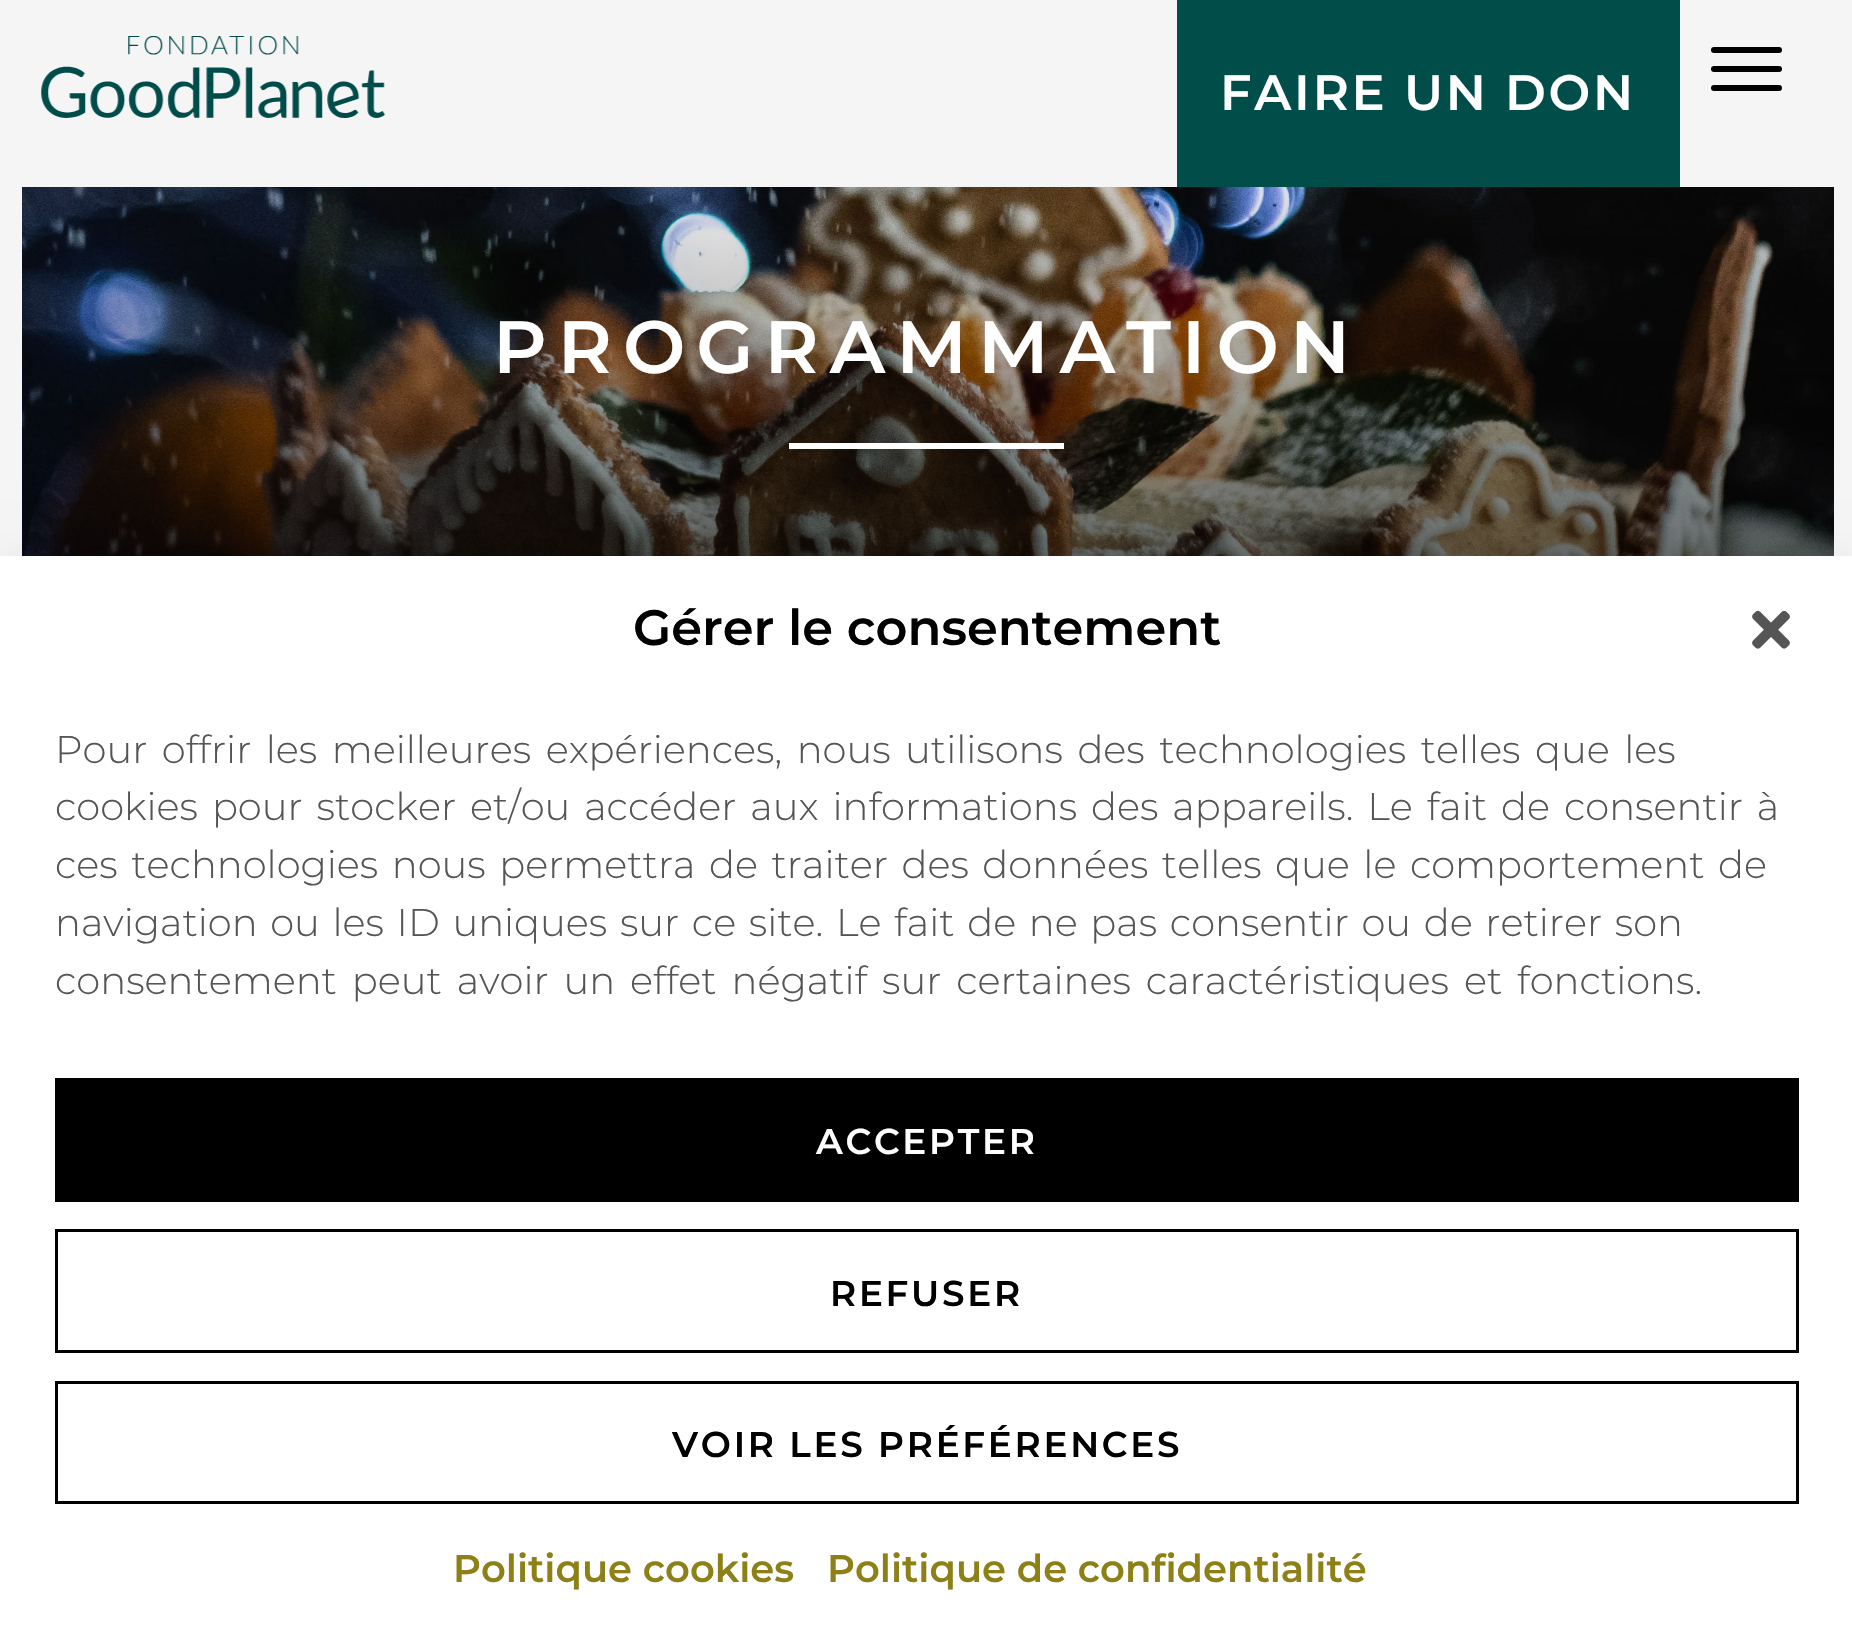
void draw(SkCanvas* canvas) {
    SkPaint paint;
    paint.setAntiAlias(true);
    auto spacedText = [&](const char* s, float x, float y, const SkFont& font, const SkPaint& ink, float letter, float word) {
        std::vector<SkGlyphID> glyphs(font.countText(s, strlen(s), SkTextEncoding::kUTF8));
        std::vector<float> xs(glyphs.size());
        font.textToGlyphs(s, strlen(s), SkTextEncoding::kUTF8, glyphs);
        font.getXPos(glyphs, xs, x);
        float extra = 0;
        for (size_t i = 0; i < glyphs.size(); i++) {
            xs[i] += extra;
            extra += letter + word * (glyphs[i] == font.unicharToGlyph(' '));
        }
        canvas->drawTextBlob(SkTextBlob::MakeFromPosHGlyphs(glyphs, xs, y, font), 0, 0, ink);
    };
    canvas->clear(0xFFF5F5F5);
    canvas->drawImageRect(SkImages::DeferredFromEncodedData(SkData::MakeFromFileName("img1.png")), SkRect::MakeXYWH(41, 36, 345, 82), SkSamplingOptions());
    paint.setColor(0xFF014D4A);
    canvas->drawRect(SkRect::MakeXYWH(1177, 0, 503, 187), paint);
    SkFont font1(fontMgr->matchFamilyStyle("Montserrat", SkFontStyle(600, SkFontStyle::kNormal_Width, SkFontStyle::kUpright_Slant)), 49.5f);
    font1.setSubpixel(true);
    paint.setColor(0xFFFFFFFF);
    spacedText("FAIRE UN DON", 1220, 110, font1, paint, 2.75f, 0);
    paint.setColor(0xFF000000);
    canvas->drawRoundRect(SkRect::MakeXYWH(1711, 47, 71, 6), 3, 3, paint);
    canvas->drawRoundRect(SkRect::MakeXYWH(1711, 66, 71, 6), 3, 3, paint);
    canvas->drawRoundRect(SkRect::MakeXYWH(1711, 85, 71, 6), 3, 3, paint);
    canvas->drawImageRect(SkImages::DeferredFromEncodedData(SkData::MakeFromFileName("img2.png")), SkRect::MakeXYWH(22, 187, 1812, 369), SkSamplingOptions());
    {
        const SkColor colors[] = {0x00000000, 0xA3000000, 0xFF000000};
        const float stops[] = {0, 0.8f, 1};
        const SkPoint ends[] = {{928, 137}, {928, 795}};
        paint.setShader(SkGradientShader::MakeLinear(ends, colors, stops, 3, SkTileMode::kClamp));
        paint.setAlpha(255);
    }
    canvas->drawRect(SkRect::MakeXYWH(22, 187, 1812, 369), paint);
    SkFont font2(fontMgr->matchFamilyStyle("Montserrat", SkFontStyle(600, SkFontStyle::kNormal_Width, SkFontStyle::kUpright_Slant)), 74.1f);
    font2.setSubpixel(true);
    paint.setShader(nullptr);
    paint.setColor(0xFFFFFFFF);
    spacedText("PROGRAMMATION", 493, 373, font2, paint, 11, 0);
    canvas->drawRect(SkRect::MakeXYWH(789, 443, 275, 6), paint);
    paint.setColor(0x30000000);
    paint.setMaskFilter(SkMaskFilter::MakeBlur(kNormal_SkBlurStyle, 27.5f));
    canvas->drawRect(SkRect::MakeXYWH(0, 583, 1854, 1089), paint);
    paint.setMaskFilter(nullptr);
    paint.setColor(0xFFFFFFFF);
    canvas->drawRect(SkRect::MakeXYWH(0, 556, 1852, 1088), paint);
    paint.setColor(0xFF000000);
    canvas->drawString("Gérer le consentement", 633, 645, font1, paint);
    canvas->drawImageRect(SkImages::DeferredFromEncodedData(SkData::MakeFromFileName("img3.png")), SkRect::MakeXYWH(1752, 610, 38, 39), SkSamplingOptions());
    SkFont font3(fontMgr->matchFamilyStyle("Montserrat", SkFontStyle(300, SkFontStyle::kNormal_Width, SkFontStyle::kUpright_Slant)), 38.5f);
    font3.setSubpixel(true);
    paint.setColor(0xFF555555);
    spacedText("Pour offrir les meilleures expériences, nous utilisons des technologies telles que les", 55, 763, font3, paint, 0, 4.6f);
    spacedText("cookies pour stocker et/ou accéder aux informations des appareils. Le fait de consentir à", 55, 820, font3, paint, 0, 4);
    spacedText("ces technologies nous permettra de traiter des données telles que le comportement de", 55, 878, font3, paint, 0, 3.6f);
    spacedText("navigation ou les ID uniques sur ce site. Le fait de ne pas consentir ou de retirer son", 55, 936, font3, paint, 0, 2.75f);
    spacedText("consentement peut avoir un effet négatif sur certaines caractéristiques et fonctions.", 55, 994, font3, paint, 0, 5);
    paint.setColor(0xFF000000);
    canvas->drawRect(SkRect::MakeXYWH(55, 1078, 1744, 124), paint);
    SkFont font4(fontMgr->matchFamilyStyle("Montserrat", SkFontStyle(600, SkFontStyle::kNormal_Width, SkFontStyle::kUpright_Slant)), 35.75f);
    font4.setSubpixel(true);
    paint.setColor(0xFFFFFFFF);
    spacedText("ACCEPTER", 816, 1154, font4, paint, 2.75f, 0);
    paint.setStyle(SkPaint::kStroke_Style);
    paint.setStrokeWidth(3);
    paint.setColor(0xFF000000);
    canvas->drawRect(SkRect::MakeXYWH(56.5f, 1230.5f, 1741, 121), paint);
    paint.setStyle(SkPaint::kFill_Style);
    spacedText("REFUSER", 830, 1306, font4, paint, 2.75f, 0);
    paint.setStyle(SkPaint::kStroke_Style);
    canvas->drawRect(SkRect::MakeXYWH(56.5f, 1382.5f, 1741, 120), paint);
    paint.setStyle(SkPaint::kFill_Style);
    spacedText("VOIR LES PRÉFÉRENCES", 672, 1457, font4, paint, 2.75f, 0);
    SkFont font5(fontMgr->matchFamilyStyle("Montserrat", SkFontStyle(600, SkFontStyle::kNormal_Width, SkFontStyle::kUpright_Slant)), 38.5f);
    font5.setSubpixel(true);
    paint.setColor(0xFF8D8017);
    canvas->drawString("Politique cookies", 453, 1582, font5, paint);
    canvas->drawString("Politique de confidentialité", 827, 1582, font5, paint);
}
